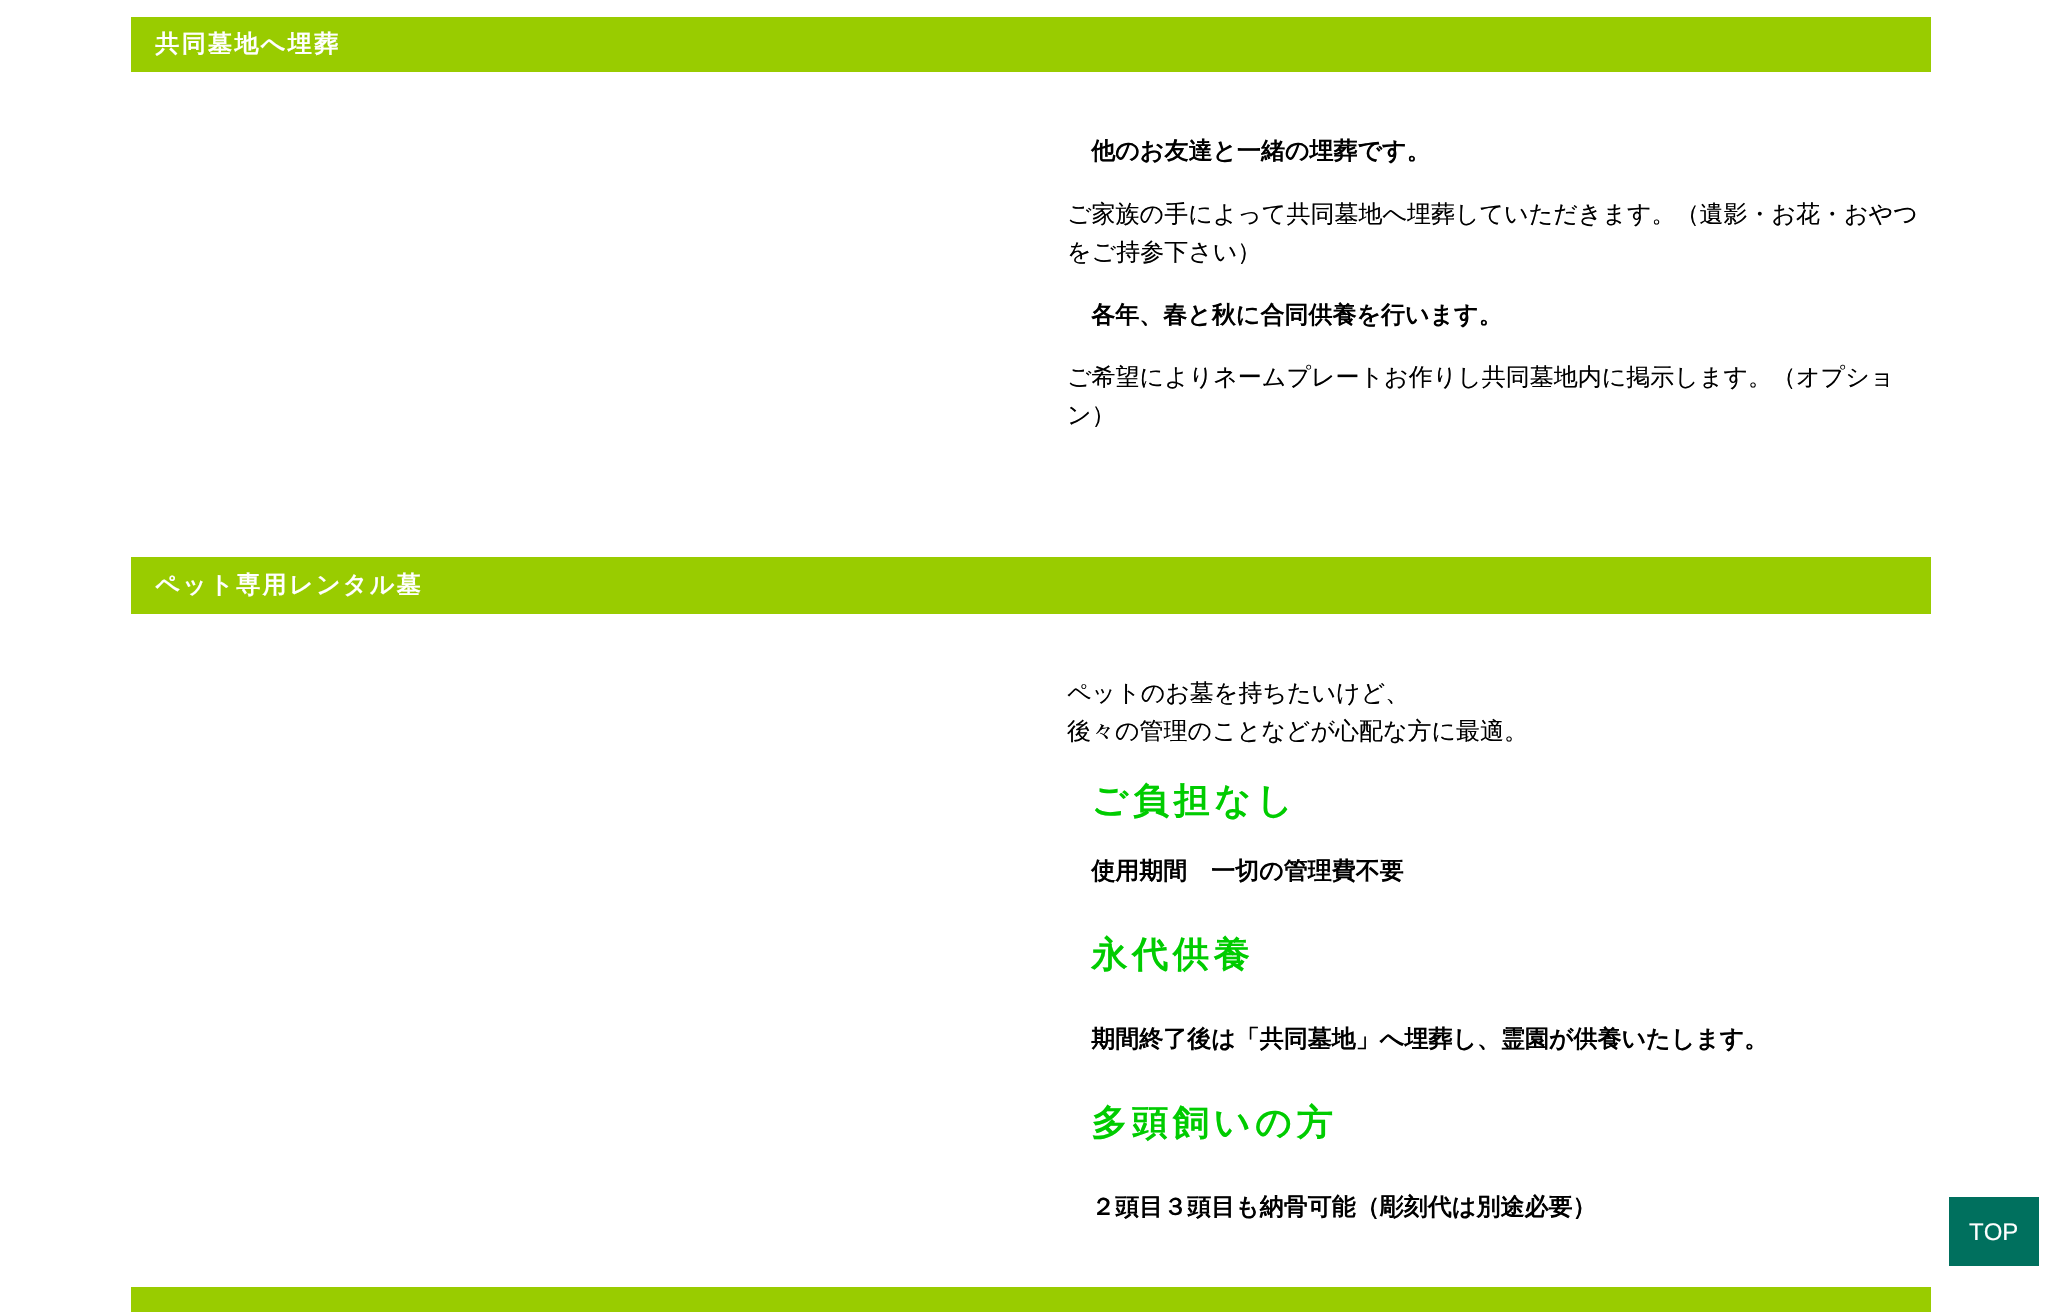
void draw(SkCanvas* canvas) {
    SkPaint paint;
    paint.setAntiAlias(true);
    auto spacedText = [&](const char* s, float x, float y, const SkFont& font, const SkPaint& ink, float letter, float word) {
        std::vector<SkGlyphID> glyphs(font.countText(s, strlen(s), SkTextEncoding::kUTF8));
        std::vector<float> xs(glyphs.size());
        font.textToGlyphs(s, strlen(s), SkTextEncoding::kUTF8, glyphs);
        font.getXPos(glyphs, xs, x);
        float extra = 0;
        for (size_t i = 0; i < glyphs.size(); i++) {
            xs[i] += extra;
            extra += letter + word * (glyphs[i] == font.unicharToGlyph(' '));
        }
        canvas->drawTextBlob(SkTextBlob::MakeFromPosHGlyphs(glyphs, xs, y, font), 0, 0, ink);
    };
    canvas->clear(0xFFFFFFFF);
    paint.setColor(0xFF99CC00);
    canvas->drawRect(SkRect::MakeXYWH(131, 17, 1800, 55), paint);
    SkFont font1(fontMgr->matchFamilyStyle("WenQuanYi Zen Hei", SkFontStyle::Bold()), 24);
    font1.setSubpixel(true);
    paint.setColor(0xFFFFFFFF);
    spacedText("共同墓地へ埋葬", 155, 52, font1, paint, 2.4f, 0);
    paint.setColor(0xFF000000);
    canvas->drawString("他のお友達と一緒の埋葬です。", 1091, 159, font1, paint);
    SkFont font2(fontMgr->matchFamilyStyle("WenQuanYi Zen Hei", SkFontStyle(500, SkFontStyle::kNormal_Width, SkFontStyle::kUpright_Slant)), 24);
    font2.setSubpixel(true);
    canvas->drawString("ご家族の手によって共同墓地へ埋葬していただきます。（遺影・お花・おやつ", 1067, 222, font2, paint);
    canvas->drawString("をご持参下さい）", 1067, 260, font2, paint);
    canvas->drawString("各年、春と秋に合同供養を行います。", 1091, 323, font1, paint);
    canvas->drawString("ご希望によりネームプレートお作りし共同墓地内に掲示します。（オプショ", 1067, 385, font2, paint);
    canvas->drawString("ン）", 1067, 423, font2, paint);
    paint.setColor(0xFF99CC00);
    canvas->drawRect(SkRect::MakeXYWH(131, 557, 1800, 57), paint);
    paint.setColor(0xFFFFFFFF);
    spacedText("ペット専用レンタル墓", 155, 593, font1, paint, 2.4f, 0);
    paint.setColor(0xFF000000);
    canvas->drawString("ペットのお墓を持ちたいけど、", 1067, 701, font2, paint);
    canvas->drawString("後々の管理のことなどが心配な方に最適。", 1067, 739, font2, paint);
    SkFont font3(fontMgr->matchFamilyStyle("WenQuanYi Zen Hei", SkFontStyle::Bold()), 36);
    font3.setSubpixel(true);
    paint.setColor(0xFF00CC00);
    spacedText("ご負担なし", 1091, 813, font3, paint, 4.75f, 0);
    paint.setColor(0xFF000000);
    canvas->drawString("使用期間　一切の管理費不要", 1091, 879, font1, paint);
    paint.setColor(0xFF00CC00);
    spacedText("永代供養", 1091, 967, font3, paint, 4.75f, 0);
    paint.setColor(0xFF000000);
    canvas->drawString("期間終了後は「共同墓地」へ埋葬し、霊園が供養いたします。", 1091, 1047, font1, paint);
    paint.setColor(0xFF00CC00);
    spacedText("多頭飼いの方", 1091, 1135, font3, paint, 4.75f, 0);
    paint.setColor(0xFF000000);
    canvas->drawString("２頭目３頭目も納骨可能（彫刻代は別途必要）", 1091, 1215, font1, paint);
    paint.setColor(0xFF99CC00);
    canvas->drawRect(SkRect::MakeXYWH(131, 1287, 1800, 25), paint);
    paint.setColor(0xFF00705E);
    canvas->drawRect(SkRect::MakeXYWH(1949, 1197, 90, 69), paint);
    SkFont font4(fontMgr->matchFamilyStyle("Liberation Sans", SkFontStyle::Normal()), 24);
    font4.setSubpixel(true);
    paint.setColor(0xFFFFFFFF);
    canvas->drawString("TOP", 1969, 1240, font4, paint);
}
